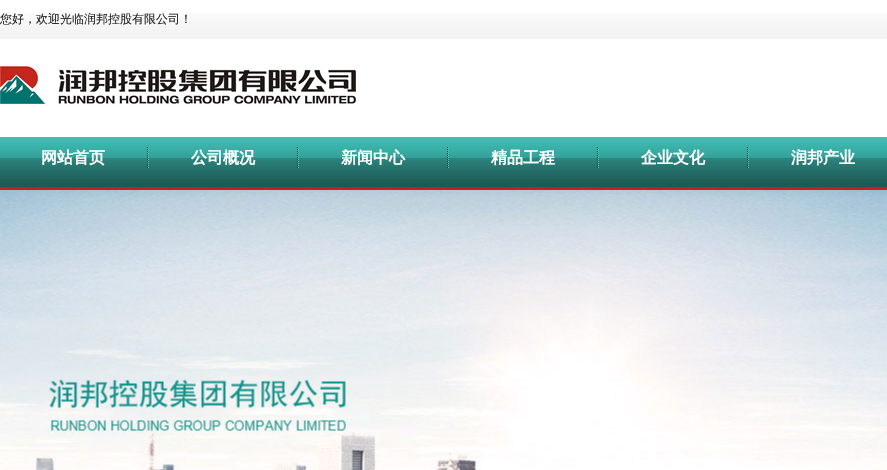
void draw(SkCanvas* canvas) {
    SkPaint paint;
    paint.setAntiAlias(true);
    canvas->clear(0xFFFFFFFF);
    canvas->drawImageRect(SkImages::DeferredFromEncodedData(SkData::MakeFromFileName("img1.png")), SkRect::MakeXYWH(0, 13, 887, 26), SkSamplingOptions());
    SkFont font1(fontMgr->matchFamilyStyle("WenQuanYi Zen Hei", SkFontStyle(500, SkFontStyle::kNormal_Width, SkFontStyle::kUpright_Slant)), 12);
    font1.setSubpixel(true);
    paint.setColor(0xFF222222);
    canvas->drawString("您好，欢迎光临润邦控股有限公司！", 0, 23, font1, paint);
    canvas->drawImageRect(SkImages::DeferredFromEncodedData(SkData::MakeFromFileName("img2.png")), SkRect::MakeXYWH(0, 59, 357, 48), SkSamplingOptions());
    canvas->drawImageRect(SkImages::DeferredFromEncodedData(SkData::MakeFromFileName("img3.png")), SkRect::MakeXYWH(0, 137, 887, 53), SkSamplingOptions());
    SkFont font2(fontMgr->matchFamilyStyle("WenQuanYi Zen Hei", SkFontStyle::Bold()), 16);
    font2.setSubpixel(true);
    paint.setColor(0xFFFFFFFF);
    canvas->drawString("网站首页", 41, 163, font2, paint);
    canvas->drawImageRect(SkImages::DeferredFromEncodedData(SkData::MakeFromFileName("img4.png")), SkRect::MakeXYWH(147, 147, 2, 21), SkSamplingOptions());
    canvas->drawString("公司概况", 191, 163, font2, paint);
    canvas->drawImageRect(SkImages::DeferredFromEncodedData(SkData::MakeFromFileName("img4.png")), SkRect::MakeXYWH(297, 147, 2, 21), SkSamplingOptions());
    canvas->drawString("新闻中心", 341, 163, font2, paint);
    canvas->drawImageRect(SkImages::DeferredFromEncodedData(SkData::MakeFromFileName("img4.png")), SkRect::MakeXYWH(447, 147, 2, 21), SkSamplingOptions());
    canvas->drawString("精品工程", 491, 163, font2, paint);
    canvas->drawImageRect(SkImages::DeferredFromEncodedData(SkData::MakeFromFileName("img4.png")), SkRect::MakeXYWH(597, 147, 2, 21), SkSamplingOptions());
    canvas->drawString("企业文化", 641, 163, font2, paint);
    canvas->drawImageRect(SkImages::DeferredFromEncodedData(SkData::MakeFromFileName("img4.png")), SkRect::MakeXYWH(747, 147, 2, 21), SkSamplingOptions());
    canvas->drawString("润邦产业", 791, 163, font2, paint);
    canvas->drawImageRect(SkImages::DeferredFromEncodedData(SkData::MakeFromFileName("img5.png")), SkRect::MakeXYWH(0, 190, 887, 280), SkSamplingOptions());
}
